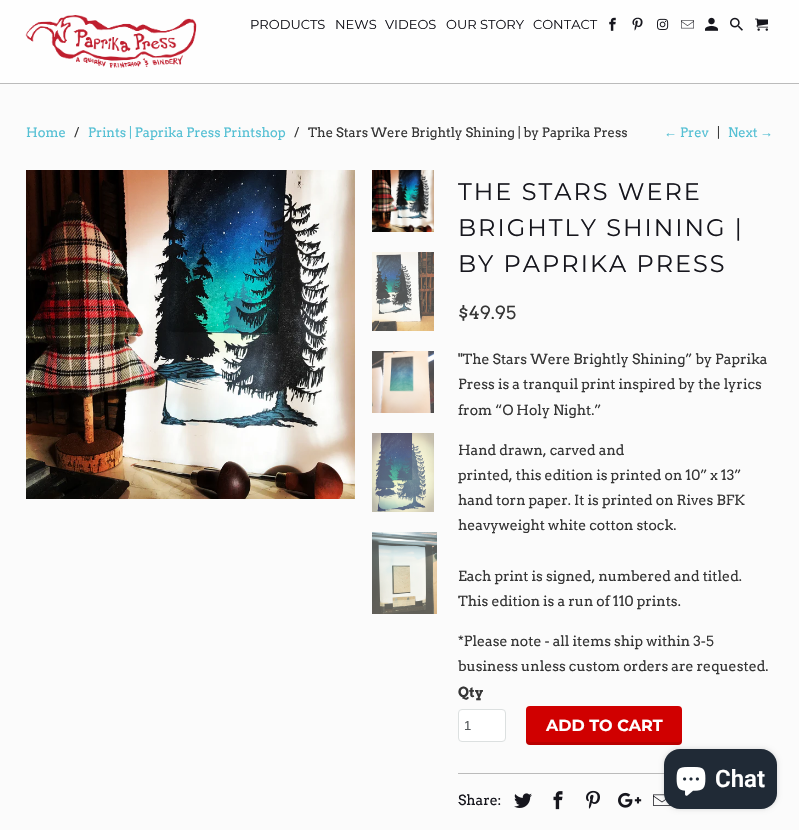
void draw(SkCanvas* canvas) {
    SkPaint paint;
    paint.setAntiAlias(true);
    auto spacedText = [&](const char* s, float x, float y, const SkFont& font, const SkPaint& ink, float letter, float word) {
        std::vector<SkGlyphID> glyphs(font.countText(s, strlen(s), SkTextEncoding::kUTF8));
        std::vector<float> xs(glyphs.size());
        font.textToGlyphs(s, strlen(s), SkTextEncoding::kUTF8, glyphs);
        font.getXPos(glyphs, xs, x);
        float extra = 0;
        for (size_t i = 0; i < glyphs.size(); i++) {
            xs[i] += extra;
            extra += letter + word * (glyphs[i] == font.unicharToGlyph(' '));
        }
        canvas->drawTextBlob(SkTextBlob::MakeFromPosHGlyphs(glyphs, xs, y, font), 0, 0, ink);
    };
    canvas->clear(0xFFFBFBFB);
    paint.setColor(0xFFFEFEFE);
    canvas->drawRect(SkRect::MakeXYWH(0, 0, 799, 83), paint);
    paint.setColor(0xFFBBBBBB);
    canvas->drawRect(SkRect::MakeXYWH(0, 83, 799, 1), paint);
    canvas->drawImageRect(SkImages::DeferredFromEncodedData(SkData::MakeFromFileName("img1.png")), SkRect::MakeXYWH(25, 15, 172, 53), SkSamplingOptions());
    SkFont font1(fontMgr->matchFamilyStyle("Montserrat", SkFontStyle::Normal()), 13);
    font1.setSubpixel(true);
    paint.setColor(0xFF16161D);
    canvas->drawString("PRODUCTS", 250, 29, font1, paint);
    canvas->drawString("NEWS", 335, 29, font1, paint);
    canvas->drawString("VIDEOS", 385, 29, font1, paint);
    canvas->drawString("OUR STORY", 446, 29, font1, paint);
    canvas->drawString("CONTACT", 533, 29, font1, paint);
    canvas->drawImageRect(SkImages::DeferredFromEncodedData(SkData::MakeFromFileName("img2.png")), SkRect::MakeXYWH(609, 17, 7, 14), SkSamplingOptions());
    canvas->drawImageRect(SkImages::DeferredFromEncodedData(SkData::MakeFromFileName("img3.png")), SkRect::MakeXYWH(632, 17, 11, 14), SkSamplingOptions());
    canvas->drawImageRect(SkImages::DeferredFromEncodedData(SkData::MakeFromFileName("img4.png")), SkRect::MakeXYWH(657, 18, 12, 12), SkSamplingOptions());
    canvas->drawImageRect(SkImages::DeferredFromEncodedData(SkData::MakeFromFileName("img5.png")), SkRect::MakeXYWH(681, 20, 13, 9), SkSamplingOptions());
    canvas->drawImageRect(SkImages::DeferredFromEncodedData(SkData::MakeFromFileName("img6.png")), SkRect::MakeXYWH(705, 17, 13, 14), SkSamplingOptions());
    canvas->drawImageRect(SkImages::DeferredFromEncodedData(SkData::MakeFromFileName("img7.png")), SkRect::MakeXYWH(730, 17, 13, 14), SkSamplingOptions());
    canvas->drawImageRect(SkImages::DeferredFromEncodedData(SkData::MakeFromFileName("img8.png")), SkRect::MakeXYWH(755, 18, 13, 13), SkSamplingOptions());
    SkFont font2(fontMgr->matchFamilyStyle("Arvo", SkFontStyle::Normal()), 13);
    font2.setSubpixel(true);
    paint.setColor(0xFF55C0D4);
    canvas->drawString("Home", 26, 137, font2, paint);
    paint.setColor(0xFF363636);
    canvas->drawString("/", 74, 137, font2, paint);
    paint.setColor(0xFF55C0D4);
    canvas->drawString("Prints | Paprika Press Printshop", 88, 137, font2, paint);
    paint.setColor(0xFF363636);
    canvas->drawString("/", 294, 137, font2, paint);
    canvas->drawString("The Stars Were Brightly Shining | by Paprika Press", 308, 137, font2, paint);
    SkFont font3(fontMgr->matchFamilyStyle("Liberation Serif", SkFontStyle::Normal()), 13);
    font3.setSubpixel(true);
    paint.setColor(0xFF55C0D4);
    canvas->drawString("←", 664, 137, font3, paint);
    canvas->drawString("Prev", 680, 137, font2, paint);
    paint.setColor(0xFF363636);
    canvas->drawString("|", 717, 137, font2, paint);
    paint.setColor(0xFF55C0D4);
    canvas->drawString("Next", 728, 137, font2, paint);
    canvas->drawString("→", 760, 137, font3, paint);
    canvas->drawImageRect(SkImages::DeferredFromEncodedData(SkData::MakeFromFileName("img9.png")), SkRect::MakeXYWH(26, 170, 329, 329), SkSamplingOptions());
    canvas->drawImageRect(SkImages::DeferredFromEncodedData(SkData::MakeFromFileName("img10.png")), SkRect::MakeXYWH(372, 170, 62, 62), SkSamplingOptions());
    canvas->drawImageRect(SkImages::DeferredFromEncodedData(SkData::MakeFromFileName("img11.png")), SkRect::MakeXYWH(372, 252, 62, 79), SkSamplingOptions());
    canvas->drawImageRect(SkImages::DeferredFromEncodedData(SkData::MakeFromFileName("img12.png")), SkRect::MakeXYWH(372, 351, 62, 62), SkSamplingOptions());
    canvas->drawImageRect(SkImages::DeferredFromEncodedData(SkData::MakeFromFileName("img13.png")), SkRect::MakeXYWH(372, 433, 62, 79), SkSamplingOptions());
    canvas->drawImageRect(SkImages::DeferredFromEncodedData(SkData::MakeFromFileName("img14.png")), SkRect::MakeXYWH(372, 532, 65, 82), SkSamplingOptions());
    SkFont font4(fontMgr->matchFamilyStyle("Montserrat", SkFontStyle::Normal()), 24);
    font4.setSubpixel(true);
    paint.setColor(0xFF16161D);
    spacedText("THE STARS WERE", 458, 200, font4, paint, 2, 0);
    spacedText("BRIGHTLY SHINING |", 458, 236, font4, paint, 2, 0);
    spacedText("BY PAPRIKA PRESS", 458, 272, font4, paint, 2, 0);
    SkFont font5(fontMgr->matchFamilyStyle("Arvo", SkFontStyle::Normal()), 18);
    font5.setSubpixel(true);
    paint.setColor(0xFF363636);
    canvas->drawString("$49.95", 458, 319, font5, paint);
    SkFont font6(fontMgr->matchFamilyStyle("Arvo", SkFontStyle::Normal()), 14);
    font6.setSubpixel(true);
    canvas->drawString("\"The Stars Were Brightly Shining” by Paprika", 458, 364, font6, paint);
    canvas->drawString("Press is a tranquil print inspired by the lyrics", 458, 389, font6, paint);
    canvas->drawString("from “O Holy Night.”", 458, 415, font6, paint);
    canvas->drawString("Hand drawn, carved and", 458, 455, font6, paint);
    canvas->drawString("printed, this edition is printed on 10” x 13”", 458, 480, font6, paint);
    canvas->drawString("hand torn paper. It is printed on Rives BFK", 458, 505, font6, paint);
    canvas->drawString("heavyweight white cotton stock.", 458, 530, font6, paint);
    canvas->drawString("Each print is signed, numbered and titled.", 458, 581, font6, paint);
    canvas->drawString("This edition is a run of 110 prints.", 458, 606, font6, paint);
    canvas->drawString("*Please note - all items ship within 3-5", 458, 646, font6, paint);
    canvas->drawString("business unless custom orders are requested.", 458, 671, font6, paint);
    SkFont font7(fontMgr->matchFamilyStyle("Arvo", SkFontStyle::Bold()), 14);
    font7.setSubpixel(true);
    canvas->drawString("Qty", 458, 697, font7, paint);
    paint.setColor(0xFFFFFFFF);
    canvas->drawRoundRect(SkRect::MakeXYWH(458.5f, 709.5f, 47, 32), 3.5f, 3.5f, paint);
    paint.setStyle(SkPaint::kStroke_Style);
    paint.setStrokeWidth(1);
    paint.setColor(0xFFDCE0E0);
    canvas->drawRoundRect(SkRect::MakeXYWH(458.5f, 709.5f, 47, 32), 3.5f, 3.5f, paint);
    SkFont font8(fontMgr->matchFamilyStyle("Liberation Sans", SkFontStyle::Normal()), 13);
    font8.setSubpixel(true);
    paint.setStyle(SkPaint::kFill_Style);
    paint.setColor(0xFF565A5C);
    canvas->drawString("1", 464, 730, font8, paint);
    paint.setColor(0xFFD00000);
    canvas->drawRoundRect(SkRect::MakeXYWH(526, 706, 156, 39), 4, 4, paint);
    paint.setColor(0x1A000000);
    canvas->drawPath(SkPathBuilder().moveTo(526, 738).lineTo(526, 741).cubicTo(526, 743, 528, 745, 530, 745).lineTo(678, 745).cubicTo(680, 745, 682, 743, 682, 741).lineTo(682, 738).cubicTo(682, 740, 680, 742, 678, 742).lineTo(530, 742).cubicTo(528, 742, 526, 740, 526, 738).close().detach(), paint);
    SkFont font9(fontMgr->matchFamilyStyle("Montserrat", SkFontStyle::Bold()), 16);
    font9.setSubpixel(true);
    paint.setColor(0xFFFFFFFF);
    canvas->drawString("ADD TO CART", 546, 731, font9, paint);
    paint.setColor(0xFFBBBBBB);
    canvas->drawRect(SkRect::MakeXYWH(458, 773, 206, 1), paint);
    paint.setColor(0xFF16161D);
    canvas->drawString("Share:", 458, 805, font6, paint);
    canvas->drawImageRect(SkImages::DeferredFromEncodedData(SkData::MakeFromFileName("img15.png")), SkRect::MakeXYWH(514, 793, 18, 15), SkSamplingOptions());
    canvas->drawImageRect(SkImages::DeferredFromEncodedData(SkData::MakeFromFileName("img16.png")), SkRect::MakeXYWH(553, 791, 10, 19), SkSamplingOptions());
    canvas->drawImageRect(SkImages::DeferredFromEncodedData(SkData::MakeFromFileName("img17.png")), SkRect::MakeXYWH(586, 790, 14, 19), SkSamplingOptions());
    canvas->drawImageRect(SkImages::DeferredFromEncodedData(SkData::MakeFromFileName("img18.png")), SkRect::MakeXYWH(618, 792, 24, 16), SkSamplingOptions());
    canvas->drawImageRect(SkImages::DeferredFromEncodedData(SkData::MakeFromFileName("img19.png")), SkRect::MakeXYWH(653, 794, 18, 12), SkSamplingOptions());
    paint.setColor(0x26000000);
    paint.setMaskFilter(SkMaskFilter::MakeBlur(kNormal_SkBlurStyle, 2.5f));
    canvas->drawRoundRect(SkRect::MakeXYWH(664, 749, 113, 60), 16, 16, paint);
    paint.setMaskFilter(nullptr);
    paint.setColor(0xFF202A36);
    canvas->drawRoundRect(SkRect::MakeXYWH(664, 749, 113, 60), 16, 16, paint);
    canvas->drawImageRect(SkImages::DeferredFromEncodedData(SkData::MakeFromFileName("img20.png")), SkRect::MakeXYWH(676, 767, 30, 29), SkSamplingOptions());
    SkFont font10(fontMgr->matchFamilyStyle("Roboto", SkFontStyle(600, SkFontStyle::kNormal_Width, SkFontStyle::kUpright_Slant)), 24);
    font10.setSubpixel(true);
    paint.setColor(0xFFFFFFFF);
    canvas->drawString("Chat", 715, 787, font10, paint);
}
